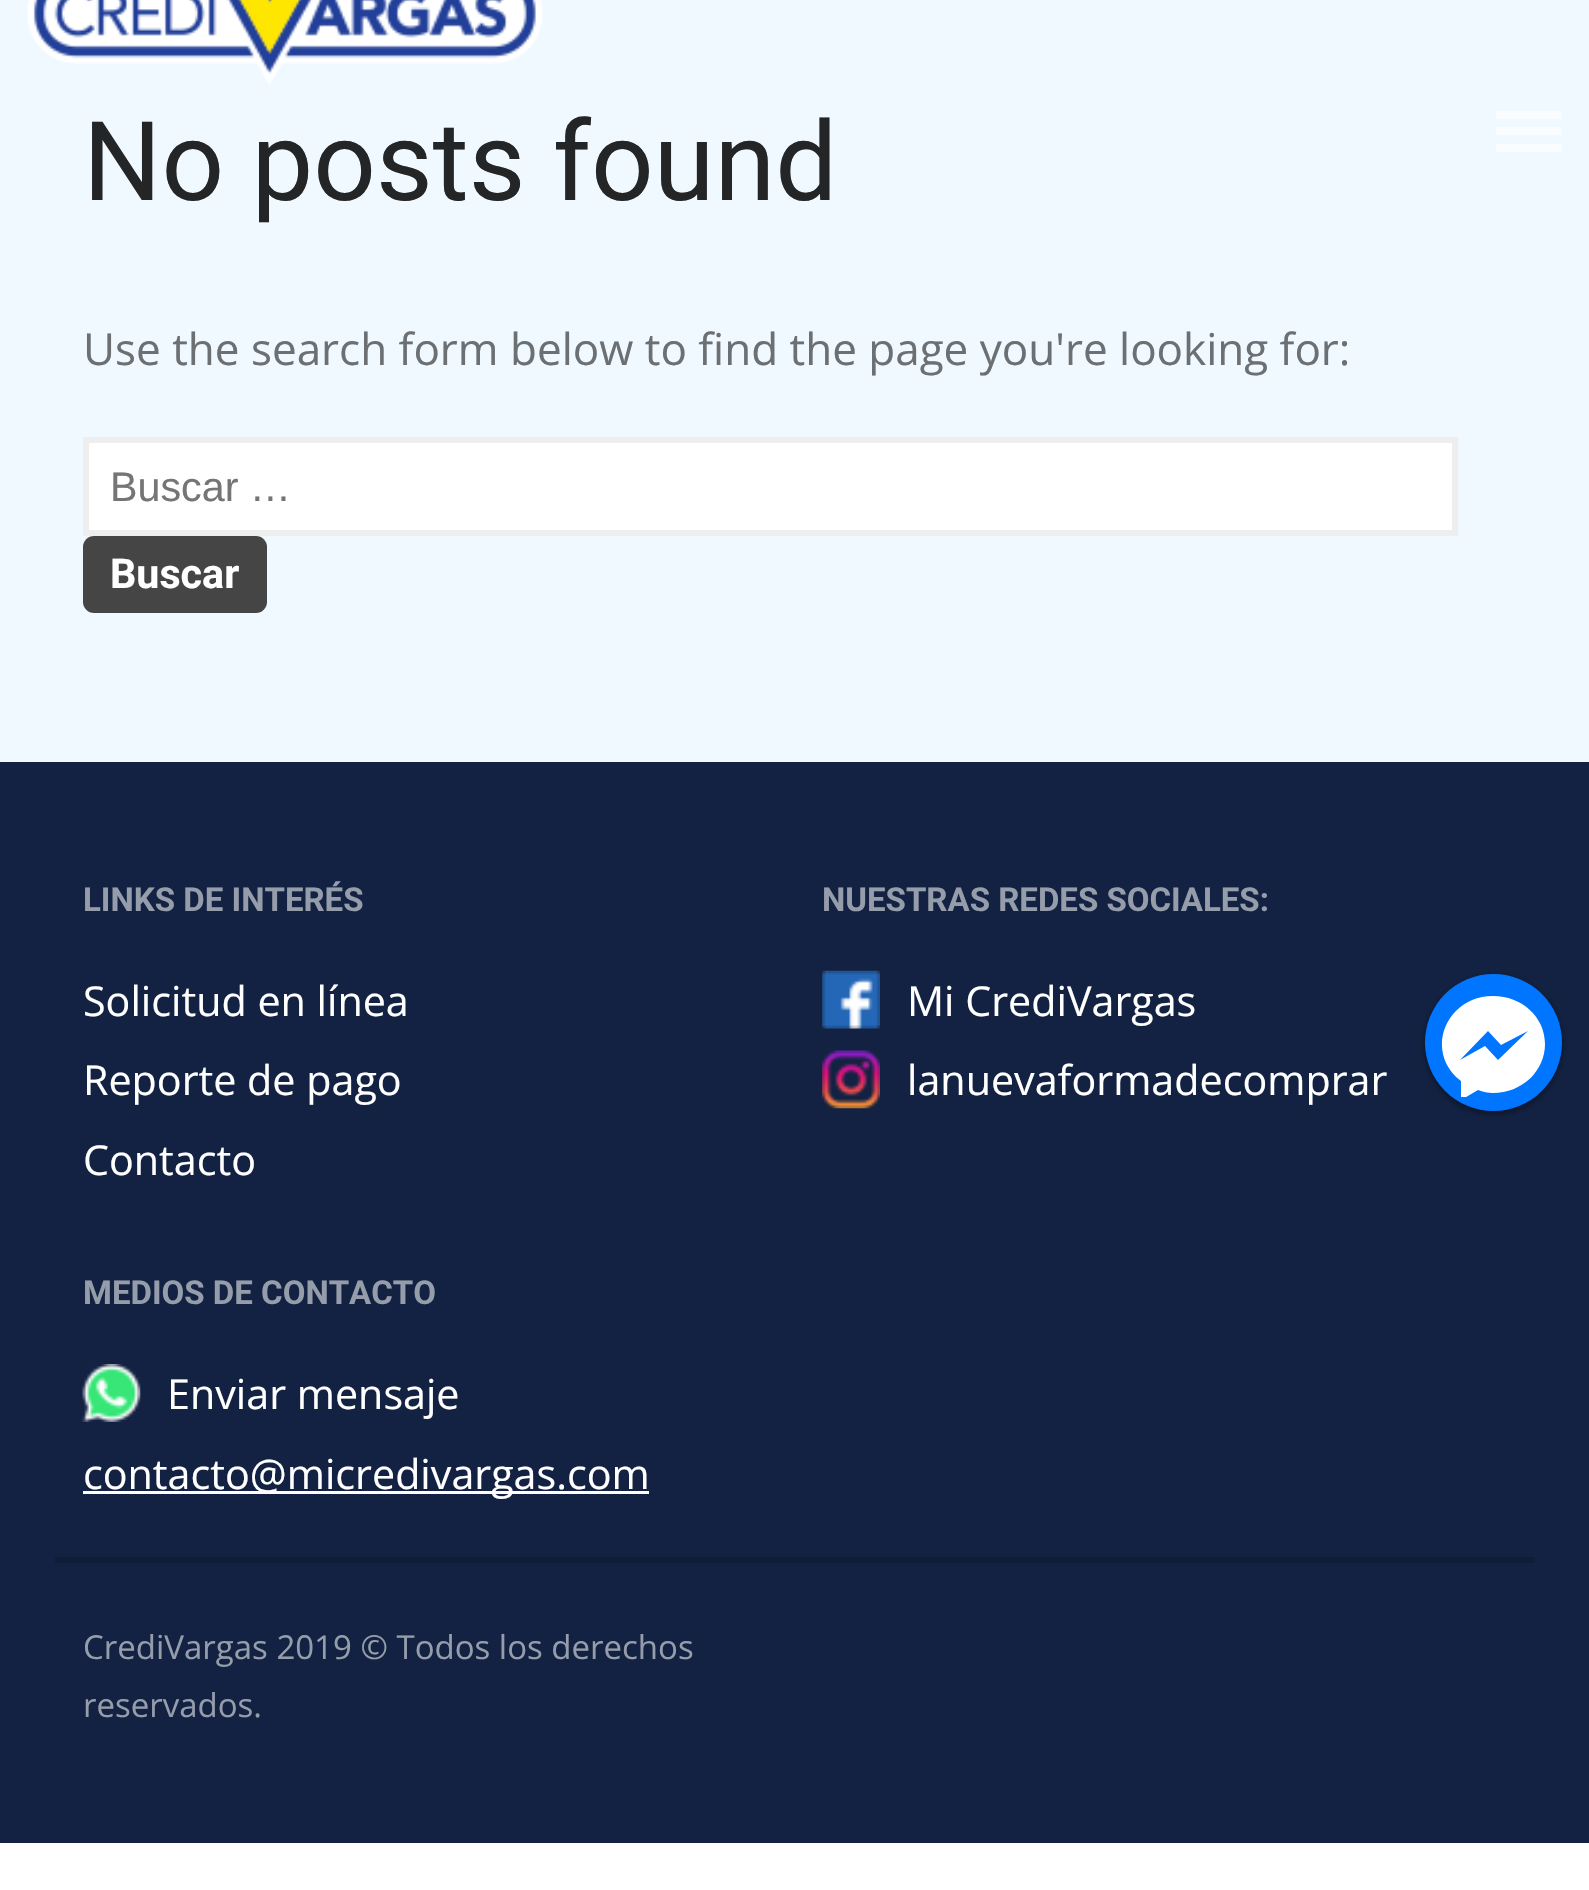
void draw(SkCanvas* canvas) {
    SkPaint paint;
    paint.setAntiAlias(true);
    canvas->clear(0xFFFFFFFF);
    paint.setColor(0xFFEFF9FF);
    canvas->drawRect(SkRect::MakeXYWH(0, 0, 1589, 762), paint);
    canvas->drawImageRect(SkImages::DeferredFromEncodedData(SkData::MakeFromFileName("img1.png")), SkRect::MakeXYWH(27, 0, 516, 85), SkSamplingOptions());
    paint.setColor(0xFFF9FDFF);
    canvas->drawPath(SkPathBuilder().moveTo(1496, 111).lineTo(1496, 119).lineTo(1562, 119).lineTo(1562, 111).close().moveTo(1496, 127).lineTo(1496, 135).lineTo(1562, 135).lineTo(1562, 127).close().moveTo(1496, 144).lineTo(1496, 152).lineTo(1562, 152).lineTo(1562, 144).close().detach(), paint);
    SkFont font1(fontMgr->matchFamilyStyle("Roboto", SkFontStyle::Normal()), 110);
    font1.setSubpixel(true);
    paint.setColor(0xFF242526);
    canvas->drawString("No posts found", 83, 200, font1, paint);
    SkFont font2(fontMgr->matchFamilyStyle("Open Sans", SkFontStyle::Normal()), 44);
    font2.setSubpixel(true);
    paint.setColor(0xFF6C7073);
    canvas->drawString("Use the search form below to find the page you're looking for:", 83, 365, font2, paint);
    paint.setColor(0xFFFFFFFF);
    canvas->drawRect(SkRect::MakeXYWH(86, 440, 1369, 93), paint);
    paint.setStyle(SkPaint::kStroke_Style);
    paint.setStrokeWidth(6);
    paint.setColor(0xFFEEEEEE);
    canvas->drawRect(SkRect::MakeXYWH(86, 440, 1369, 93), paint);
    SkFont font3(fontMgr->matchFamilyStyle("Liberation Sans", SkFontStyle::Normal()), 41.25f);
    font3.setSubpixel(true);
    paint.setStyle(SkPaint::kFill_Style);
    paint.setColor(0xFF757575);
    canvas->drawString("Buscar …", 110, 501, font3, paint);
    paint.setColor(0xFF454545);
    canvas->drawRoundRect(SkRect::MakeXYWH(83, 536, 184, 77), 11, 11, paint);
    SkFont font4(fontMgr->matchFamilyStyle("Roboto", SkFontStyle::Bold()), 41.25f);
    font4.setSubpixel(true);
    paint.setColor(0xFFFFFFFF);
    canvas->drawString("Buscar", 110, 588, font4, paint);
    paint.setColor(0xFF132242);
    canvas->drawRect(SkRect::MakeXYWH(0, 762, 1589, 1081), paint);
    SkFont font5(fontMgr->matchFamilyStyle("Roboto", SkFontStyle::Bold()), 33);
    font5.setSubpixel(true);
    paint.setColor(0xFF959CAA);
    canvas->drawString("LINKS DE INTERÉS", 83, 911, font5, paint);
    SkFont font6(fontMgr->matchFamilyStyle("Open Sans", SkFontStyle::Normal()), 41.25f);
    font6.setSubpixel(true);
    paint.setColor(0xFFFFFFFF);
    canvas->drawString("Solicitud en línea", 83, 1016, font6, paint);
    canvas->drawString("Reporte de pago", 83, 1095, font6, paint);
    canvas->drawString("Contacto", 83, 1175, font6, paint);
    paint.setColor(0xFF959CAA);
    canvas->drawString("NUESTRAS REDES SOCIALES:", 822, 911, font5, paint);
    canvas->drawImageRect(SkImages::DeferredFromEncodedData(SkData::MakeFromFileName("img2.png")), SkRect::MakeXYWH(822, 970, 58, 59), SkSamplingOptions());
    paint.setColor(0xFFFFFFFF);
    canvas->drawString("Mi CrediVargas", 907, 1016, font6, paint);
    canvas->drawImageRect(SkImages::DeferredFromEncodedData(SkData::MakeFromFileName("img3.png")), SkRect::MakeXYWH(822, 1050, 58, 59), SkSamplingOptions());
    canvas->drawString("lanuevaformadecomprar", 907, 1095, font6, paint);
    paint.setColor(0xFF959CAA);
    canvas->drawString("MEDIOS DE CONTACTO", 83, 1304, font5, paint);
    canvas->drawImageRect(SkImages::DeferredFromEncodedData(SkData::MakeFromFileName("img4.png")), SkRect::MakeXYWH(82, 1364, 59, 58), SkSamplingOptions());
    paint.setColor(0xFFFFFFFF);
    canvas->drawString("Enviar mensaje", 167, 1409, font6, paint);
    canvas->drawRect(SkRect::MakeXYWH(83, 1491, 566, 3), paint);
    canvas->drawString("contacto@micredivargas.com", 83, 1489, font6, paint);
    paint.setColor(0xFF101D38);
    canvas->drawRect(SkRect::MakeXYWH(55, 1557, 1480, 6), paint);
    SkFont font7(fontMgr->matchFamilyStyle("Open Sans", SkFontStyle::Normal()), 33);
    font7.setSubpixel(true);
    paint.setColor(0xFF959CAA);
    canvas->drawString("CrediVargas 2019 © Todos los derechos", 83, 1659, font7, paint);
    canvas->drawString("reservados.", 83, 1717, font7, paint);
    paint.setColor(0x66000000);
    paint.setMaskFilter(SkMaskFilter::MakeBlur(kNormal_SkBlurStyle, 3));
    canvas->drawRoundRect(SkRect::MakeXYWH(1425, 976, 137, 138), 68.5f, 68.5f, paint);
    paint.setMaskFilter(nullptr);
    paint.setColor(0xFF0075FF);
    canvas->drawCircle(1493.5f, 1042.5f, 68.5f, paint);
    canvas->save();
    canvas->clipRect(SkRect::MakeXYWH(1441, 996, 105, 101));
    paint.setColor(0xFFFFFFFF);
    canvas->drawPath(SkPathBuilder().moveTo(1493, 996).cubicTo(1446, 996, 1423, 1052, 1461, 1081).lineTo(1461, 1100).lineTo(1478, 1090).cubicTo(1483, 1092, 1488, 1093, 1493, 1093).cubicTo(1522, 1093, 1545, 1071, 1545, 1044).cubicTo(1545, 1017, 1522, 996, 1493, 996).close().moveTo(1498, 1060).lineTo(1485, 1046).lineTo(1460, 1060).lineTo(1488, 1031).lineTo(1501, 1045).lineTo(1528, 1031).close().detach(), paint);
    canvas->restore();
}
